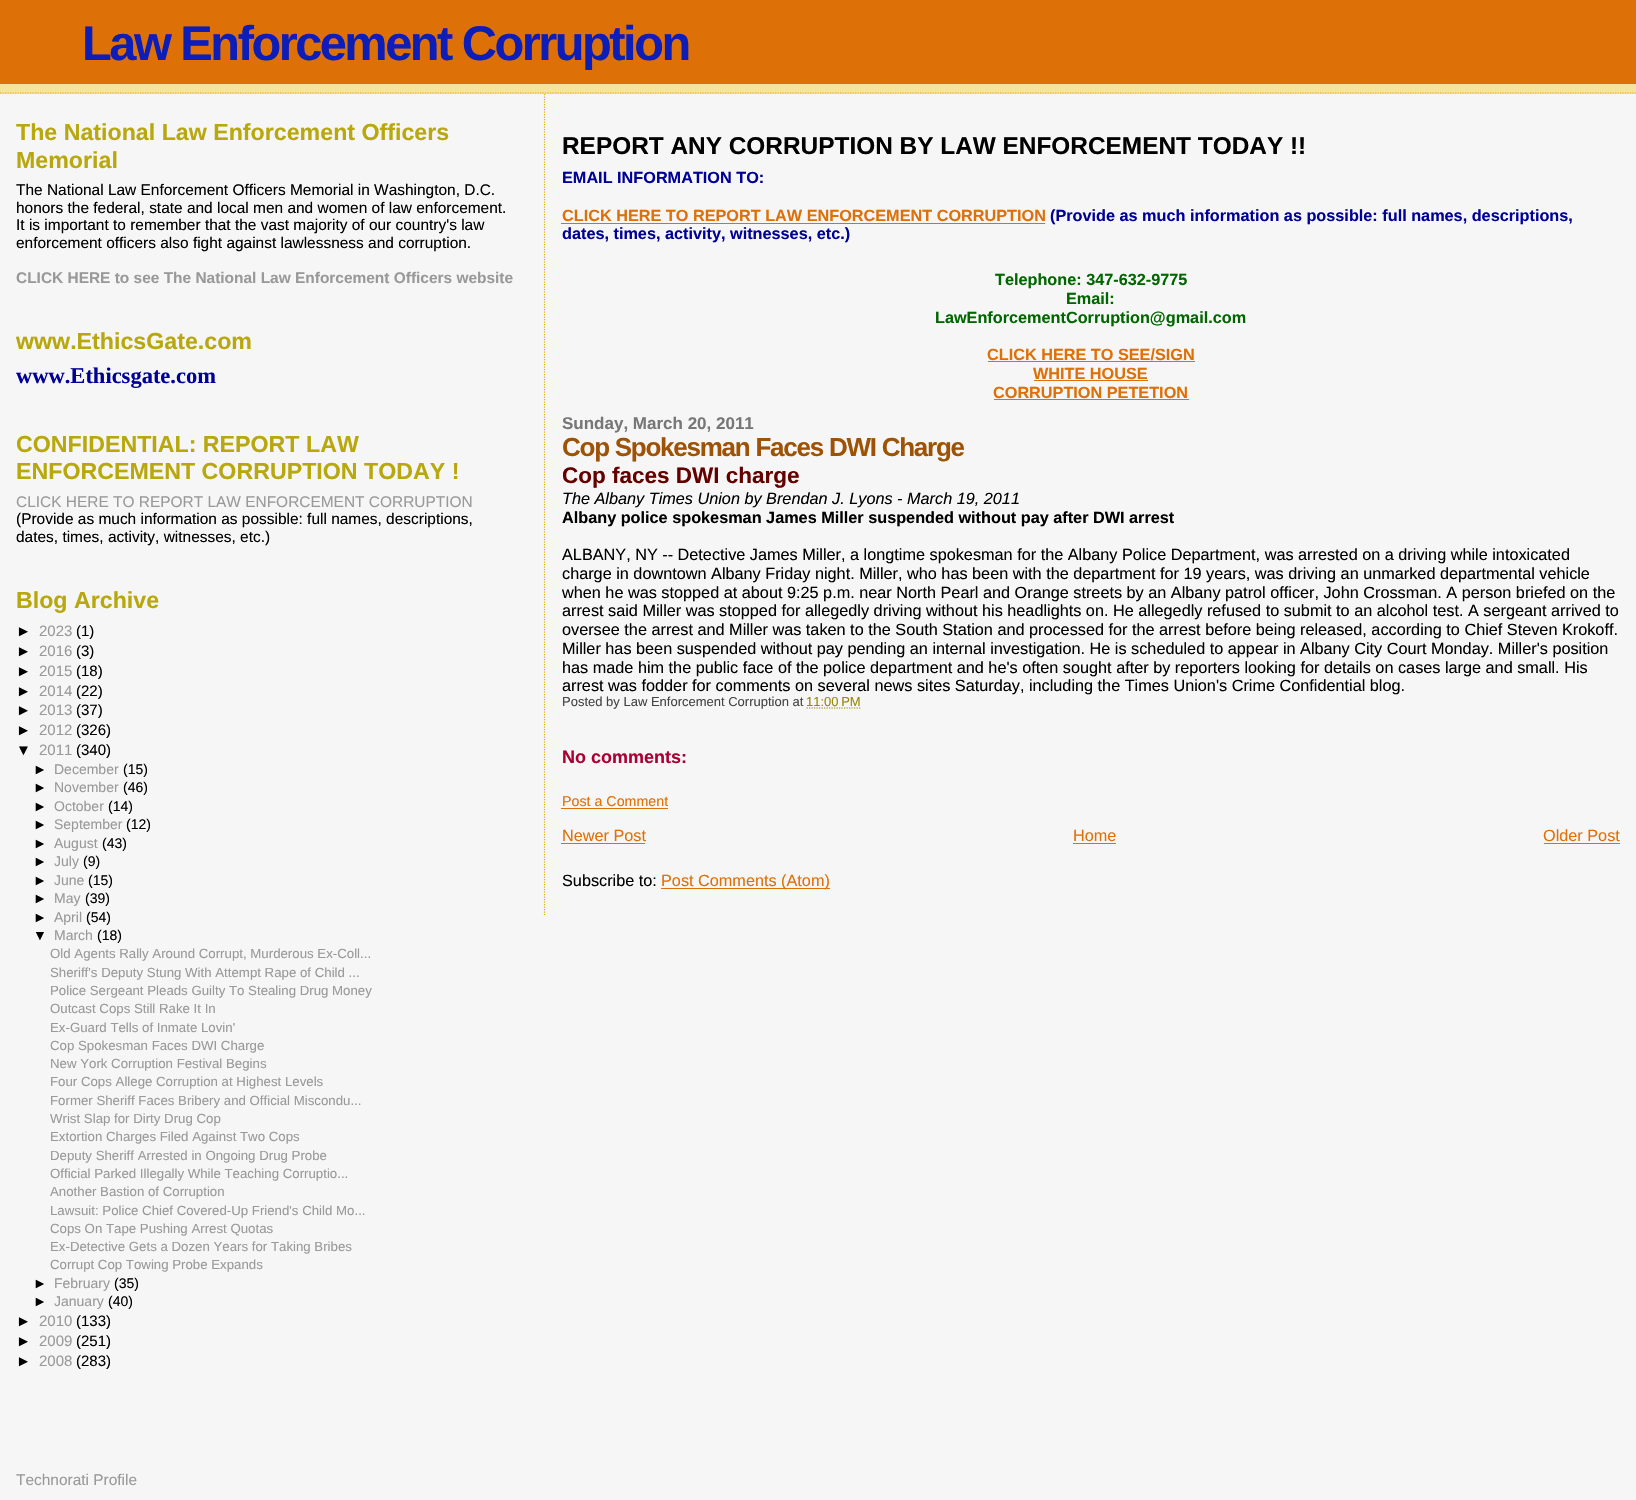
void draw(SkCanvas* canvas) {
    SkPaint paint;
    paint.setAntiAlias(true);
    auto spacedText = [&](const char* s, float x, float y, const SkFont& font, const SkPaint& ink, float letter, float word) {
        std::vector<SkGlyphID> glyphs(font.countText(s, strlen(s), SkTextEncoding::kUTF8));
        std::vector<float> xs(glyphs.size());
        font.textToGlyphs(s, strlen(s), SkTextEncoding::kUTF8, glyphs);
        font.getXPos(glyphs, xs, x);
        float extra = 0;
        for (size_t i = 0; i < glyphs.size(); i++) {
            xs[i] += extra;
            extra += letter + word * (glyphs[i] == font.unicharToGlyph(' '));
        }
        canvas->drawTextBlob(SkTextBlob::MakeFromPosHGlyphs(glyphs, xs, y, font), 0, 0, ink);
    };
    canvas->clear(0xFFF6F6F6);
    paint.setColor(0xFFF5E39E);
    canvas->drawRect(SkRect::MakeXYWH(0, 84, 1636, 10), paint);
    paint.setStyle(SkPaint::kStroke_Style);
    paint.setStrokeWidth(1.2f);
    paint.setColor(0xFFE0AD12);
    paint.setPathEffect(SkDashPathEffect::Make({{1.25f, 1.25f}}, 0));
    canvas->drawPath(SkPathBuilder().moveTo(0, 93).lineTo(1636, 93).detach(), paint);
    paint.setPathEffect(nullptr);
    paint.setStyle(SkPaint::kFill_Style);
    paint.setColor(0xFFDE7008);
    canvas->drawRect(SkRect::MakeXYWH(0, 0, 1636, 84), paint);
    SkFont font1(fontMgr->matchFamilyStyle("Liberation Sans", SkFontStyle::Bold()), 48.75f);
    font1.setSubpixel(true);
    paint.setColor(0xFF0D1DB8);
    spacedText("Law Enforcement Corruption", 82, 60, font1, paint, -2.5f, 0);
    SkFont font2(fontMgr->matchFamilyStyle("Liberation Sans", SkFontStyle::Bold()), 23.2f);
    font2.setSubpixel(true);
    paint.setColor(0xFFB8A80D);
    canvas->drawString("The National Law Enforcement Officers", 16, 140, font2, paint);
    canvas->drawString("Memorial", 16, 168, font2, paint);
    SkFont font3(fontMgr->matchFamilyStyle("Liberation Sans", SkFontStyle::Normal()), 15.45f);
    font3.setSubpixel(true);
    paint.setColor(0xFF000000);
    canvas->drawString("The National Law Enforcement Officers Memorial in Washington, D.C.", 16, 195, font3, paint);
    canvas->drawString("honors the federal, state and local men and women of law enforcement.", 16, 213, font3, paint);
    canvas->drawString("It is important to remember that the vast majority of our country's law", 16, 230, font3, paint);
    canvas->drawString("enforcement officers also fight against lawlessness and corruption.", 16, 248, font3, paint);
    SkFont font4(fontMgr->matchFamilyStyle("Liberation Sans", SkFontStyle::Bold()), 15.45f);
    font4.setSubpixel(true);
    paint.setColor(0xFF999999);
    canvas->drawString("CLICK HERE to see The National Law Enforcement Officers website", 16, 283, font4, paint);
    paint.setColor(0xFFB8A80D);
    canvas->drawString("www.EthicsGate.com", 16, 349, font2, paint);
    SkFont font5(fontMgr->matchFamilyStyle("Liberation Serif", SkFontStyle::Bold()), 22.5f);
    font5.setSubpixel(true);
    paint.setColor(0xFF000099);
    canvas->drawString("www.Ethicsgate.com", 16, 383, font5, paint);
    paint.setColor(0xFFB8A80D);
    canvas->drawString("CONFIDENTIAL: REPORT LAW", 16, 452, font2, paint);
    canvas->drawString("ENFORCEMENT CORRUPTION TODAY !", 16, 479, font2, paint);
    paint.setColor(0xFF999999);
    canvas->drawString("CLICK HERE TO REPORT LAW ENFORCEMENT CORRUPTION", 16, 507, font3, paint);
    paint.setColor(0xFF000000);
    canvas->drawString("(Provide as much information as possible: full names, descriptions,", 16, 524, font3, paint);
    canvas->drawString("dates, times, activity, witnesses, etc.)", 16, 542, font3, paint);
    paint.setColor(0xFFB8A80D);
    canvas->drawString("Blog Archive", 16, 608, font2, paint);
    SkFont font6(fontMgr->matchFamilyStyle("Liberation Sans", SkFontStyle::Normal()), 15);
    font6.setSubpixel(true);
    paint.setColor(0xFF000000);
    canvas->drawString("►", 16, 636, font6, paint);
    paint.setColor(0xFF999999);
    canvas->drawString("2023", 39, 636, font6, paint);
    paint.setColor(0xFF000000);
    canvas->drawString("(1)", 76, 636, font6, paint);
    canvas->drawString("►", 16, 656, font6, paint);
    paint.setColor(0xFF999999);
    canvas->drawString("2016", 39, 656, font6, paint);
    paint.setColor(0xFF000000);
    canvas->drawString("(3)", 76, 656, font6, paint);
    canvas->drawString("►", 16, 676, font6, paint);
    paint.setColor(0xFF999999);
    canvas->drawString("2015", 39, 676, font6, paint);
    paint.setColor(0xFF000000);
    canvas->drawString("(18)", 76, 676, font6, paint);
    canvas->drawString("►", 16, 696, font6, paint);
    paint.setColor(0xFF999999);
    canvas->drawString("2014", 39, 696, font6, paint);
    paint.setColor(0xFF000000);
    canvas->drawString("(22)", 76, 696, font6, paint);
    canvas->drawString("►", 16, 715, font6, paint);
    paint.setColor(0xFF999999);
    canvas->drawString("2013", 39, 715, font6, paint);
    paint.setColor(0xFF000000);
    canvas->drawString("(37)", 76, 715, font6, paint);
    canvas->drawString("►", 16, 735, font6, paint);
    paint.setColor(0xFF999999);
    canvas->drawString("2012", 39, 735, font6, paint);
    paint.setColor(0xFF000000);
    canvas->drawString("(326)", 76, 735, font6, paint);
    canvas->drawString("▼", 16, 755, font6, paint);
    paint.setColor(0xFF999999);
    canvas->drawString("2011", 39, 755, font6, paint);
    paint.setColor(0xFF000000);
    canvas->drawString("(340)", 76, 755, font6, paint);
    SkFont font7(fontMgr->matchFamilyStyle("Liberation Sans", SkFontStyle::Normal()), 14);
    font7.setSubpixel(true);
    canvas->drawString("►", 33, 774, font7, paint);
    paint.setColor(0xFF999999);
    canvas->drawString("December", 54, 774, font7, paint);
    paint.setColor(0xFF000000);
    canvas->drawString("(15)", 123, 774, font7, paint);
    canvas->drawString("►", 33, 792, font7, paint);
    paint.setColor(0xFF999999);
    canvas->drawString("November", 54, 792, font7, paint);
    paint.setColor(0xFF000000);
    canvas->drawString("(46)", 123, 792, font7, paint);
    canvas->drawString("►", 33, 811, font7, paint);
    paint.setColor(0xFF999999);
    canvas->drawString("October", 54, 811, font7, paint);
    paint.setColor(0xFF000000);
    canvas->drawString("(14)", 108, 811, font7, paint);
    canvas->drawString("►", 33, 829, font7, paint);
    paint.setColor(0xFF999999);
    canvas->drawString("September", 54, 829, font7, paint);
    paint.setColor(0xFF000000);
    canvas->drawString("(12)", 126, 829, font7, paint);
    canvas->drawString("►", 33, 848, font7, paint);
    paint.setColor(0xFF999999);
    canvas->drawString("August", 54, 848, font7, paint);
    paint.setColor(0xFF000000);
    canvas->drawString("(43)", 102, 848, font7, paint);
    canvas->drawString("►", 33, 866, font7, paint);
    paint.setColor(0xFF999999);
    canvas->drawString("July", 54, 866, font7, paint);
    paint.setColor(0xFF000000);
    canvas->drawString("(9)", 83, 866, font7, paint);
    canvas->drawString("►", 33, 885, font7, paint);
    paint.setColor(0xFF999999);
    canvas->drawString("June", 54, 885, font7, paint);
    paint.setColor(0xFF000000);
    canvas->drawString("(15)", 88, 885, font7, paint);
    canvas->drawString("►", 33, 903, font7, paint);
    paint.setColor(0xFF999999);
    canvas->drawString("May", 54, 903, font7, paint);
    paint.setColor(0xFF000000);
    canvas->drawString("(39)", 85, 903, font7, paint);
    canvas->drawString("►", 33, 922, font7, paint);
    paint.setColor(0xFF999999);
    canvas->drawString("April", 54, 922, font7, paint);
    paint.setColor(0xFF000000);
    canvas->drawString("(54)", 86, 922, font7, paint);
    canvas->drawString("▼", 33, 940, font7, paint);
    paint.setColor(0xFF999999);
    canvas->drawString("March", 54, 940, font7, paint);
    paint.setColor(0xFF000000);
    canvas->drawString("(18)", 97, 940, font7, paint);
    SkFont font8(fontMgr->matchFamilyStyle("Liberation Sans", SkFontStyle::Normal()), 13.25f);
    font8.setSubpixel(true);
    paint.setColor(0xFF999999);
    canvas->drawString("Old Agents Rally Around Corrupt, Murderous Ex-Coll...", 50, 958, font8, paint);
    canvas->drawString("Sheriff's Deputy Stung With Attempt Rape of Child ...", 50, 977, font8, paint);
    canvas->drawString("Police Sergeant Pleads Guilty To Stealing Drug Money", 50, 995, font8, paint);
    canvas->drawString("Outcast Cops Still Rake It In", 50, 1013, font8, paint);
    canvas->drawString("Ex-Guard Tells of Inmate Lovin'", 50, 1032, font8, paint);
    canvas->drawString("Cop Spokesman Faces DWI Charge", 50, 1050, font8, paint);
    canvas->drawString("New York Corruption Festival Begins", 50, 1068, font8, paint);
    canvas->drawString("Four Cops Allege Corruption at Highest Levels", 50, 1086, font8, paint);
    canvas->drawString("Former Sheriff Faces Bribery and Official Miscondu...", 50, 1105, font8, paint);
    canvas->drawString("Wrist Slap for Dirty Drug Cop", 50, 1123, font8, paint);
    canvas->drawString("Extortion Charges Filed Against Two Cops", 50, 1141, font8, paint);
    canvas->drawString("Deputy Sheriff Arrested in Ongoing Drug Probe", 50, 1160, font8, paint);
    canvas->drawString("Official Parked Illegally While Teaching Corruptio...", 50, 1178, font8, paint);
    canvas->drawString("Another Bastion of Corruption", 50, 1196, font8, paint);
    canvas->drawString("Lawsuit: Police Chief Covered-Up Friend's Child Mo...", 50, 1215, font8, paint);
    canvas->drawString("Cops On Tape Pushing Arrest Quotas", 50, 1233, font8, paint);
    canvas->drawString("Ex-Detective Gets a Dozen Years for Taking Bribes", 50, 1251, font8, paint);
    canvas->drawString("Corrupt Cop Towing Probe Expands", 50, 1269, font8, paint);
    paint.setColor(0xFF000000);
    canvas->drawString("►", 33, 1288, font7, paint);
    paint.setColor(0xFF999999);
    canvas->drawString("February", 54, 1288, font7, paint);
    paint.setColor(0xFF000000);
    canvas->drawString("(35)", 114, 1288, font7, paint);
    canvas->drawString("►", 33, 1306, font7, paint);
    paint.setColor(0xFF999999);
    canvas->drawString("January", 54, 1306, font7, paint);
    paint.setColor(0xFF000000);
    canvas->drawString("(40)", 108, 1306, font7, paint);
    canvas->drawString("►", 16, 1326, font6, paint);
    paint.setColor(0xFF999999);
    canvas->drawString("2010", 39, 1326, font6, paint);
    paint.setColor(0xFF000000);
    canvas->drawString("(133)", 76, 1326, font6, paint);
    canvas->drawString("►", 16, 1346, font6, paint);
    paint.setColor(0xFF999999);
    canvas->drawString("2009", 39, 1346, font6, paint);
    paint.setColor(0xFF000000);
    canvas->drawString("(251)", 76, 1346, font6, paint);
    canvas->drawString("►", 16, 1366, font6, paint);
    paint.setColor(0xFF999999);
    canvas->drawString("2008", 39, 1366, font6, paint);
    paint.setColor(0xFF000000);
    canvas->drawString("(283)", 76, 1366, font6, paint);
    paint.setColor(0xFF999999);
    canvas->drawString("Technorati Profile", 16, 1485, font3, paint);
    paint.setStyle(SkPaint::kStroke_Style);
    paint.setColor(0xFFE0AD12);
    paint.setPathEffect(SkDashPathEffect::Make({{1.25f, 1.25f}}, 0));
    canvas->drawPath(SkPathBuilder().moveTo(544.5f, 94).lineTo(544.5f, 915).detach(), paint);
    paint.setPathEffect(nullptr);
    SkFont font9(fontMgr->matchFamilyStyle("Liberation Sans", SkFontStyle::Bold()), 24.4f);
    font9.setSubpixel(true);
    paint.setStyle(SkPaint::kFill_Style);
    paint.setColor(0xFF000000);
    canvas->drawString("REPORT ANY CORRUPTION BY LAW ENFORCEMENT TODAY !!", 562, 154, font9, paint);
    SkFont font10(fontMgr->matchFamilyStyle("Liberation Sans", SkFontStyle::Bold()), 16.25f);
    font10.setSubpixel(true);
    paint.setColor(0xFF000099);
    canvas->drawString("EMAIL INFORMATION TO:", 562, 183, font10, paint);
    paint.setColor(0xFFDE7008);
    canvas->drawString("CLICK HERE TO REPORT LAW ENFORCEMENT CORRUPTION", 562, 221, font10, paint);
    canvas->drawRect(SkRect::MakeXYWH(561, 223, 484, 1), paint);
    paint.setColor(0xFF000099);
    canvas->drawString("(Provide as much information as possible: full names, descriptions,", 1050, 221, font10, paint);
    canvas->drawString("dates, times, activity, witnesses, etc.)", 562, 239, font10, paint);
    paint.setColor(0xFF006600);
    canvas->drawString("Telephone: 347-632-9775", 995, 285, font10, paint);
    canvas->drawString("Email:", 1066, 304, font10, paint);
    canvas->drawString("LawEnforcementCorruption@gmail.com", 935, 323, font10, paint);
    paint.setColor(0xFFDE7008);
    canvas->drawString("CLICK HERE TO SEE/SIGN", 987, 360, font10, paint);
    canvas->drawRect(SkRect::MakeXYWH(988, 361, 207, 1), paint);
    canvas->drawString("WHITE HOUSE", 1033, 379, font10, paint);
    canvas->drawRect(SkRect::MakeXYWH(1034, 380, 114, 1), paint);
    canvas->drawString("CORRUPTION PETETION", 993, 398, font10, paint);
    canvas->drawRect(SkRect::MakeXYWH(994, 399, 195, 1), paint);
    SkFont font11(fontMgr->matchFamilyStyle("Liberation Sans", SkFontStyle::Bold()), 17);
    font11.setSubpixel(true);
    paint.setColor(0xFF777777);
    canvas->drawString("Sunday, March 20, 2011", 562, 429, font11, paint);
    SkFont font12(fontMgr->matchFamilyStyle("Liberation Sans", SkFontStyle::Bold()), 26);
    font12.setSubpixel(true);
    paint.setColor(0xFF9E5205);
    spacedText("Cop Spokesman Faces DWI Charge", 562, 456, font12, paint, -1.25f, 0);
    SkFont font13(fontMgr->matchFamilyStyle("Liberation Sans", SkFontStyle::Bold()), 22.5f);
    font13.setSubpixel(true);
    paint.setColor(0xFF660000);
    canvas->drawString("Cop faces DWI charge", 562, 483, font13, paint);
    SkFont font14(fontMgr->matchFamilyStyle("Liberation Sans", SkFontStyle::Italic()), 16.25f);
    font14.setSubpixel(true);
    paint.setColor(0xFF000000);
    canvas->drawString("The Albany Times Union by Brendan J. Lyons - March 19, 2011", 562, 504, font14, paint);
    canvas->drawString("Albany police spokesman James Miller suspended without pay after DWI arrest", 562, 523, font10, paint);
    SkFont font15(fontMgr->matchFamilyStyle("Liberation Sans", SkFontStyle::Normal()), 16.25f);
    font15.setSubpixel(true);
    canvas->drawString("ALBANY, NY -- Detective James Miller, a longtime spokesman for the Albany Police Department, was arrested on a driving while intoxicated", 562, 560, font15, paint);
    canvas->drawString("charge in downtown Albany Friday night. Miller, who has been with the department for 19 years, was driving an unmarked departmental vehicle", 562, 579, font15, paint);
    canvas->drawString("when he was stopped at about 9:25 p.m. near North Pearl and Orange streets by an Albany patrol officer, John Crossman. A person briefed on the", 562, 598, font15, paint);
    canvas->drawString("arrest said Miller was stopped for allegedly driving without his headlights on. He allegedly refused to submit to an alcohol test. A sergeant arrived to", 562, 616, font15, paint);
    canvas->drawString("oversee the arrest and Miller was taken to the South Station and processed for the arrest before being released, according to Chief Steven Krokoff.", 562, 635, font15, paint);
    canvas->drawString("Miller has been suspended without pay pending an internal investigation. He is scheduled to appear in Albany City Court Monday. Miller's position", 562, 654, font15, paint);
    canvas->drawString("has made him the public face of the police department and he's often sought after by reporters looking for details on cases large and small. His", 562, 673, font15, paint);
    canvas->drawString("arrest was fodder for comments on several news sites Saturday, including the Times Union's Crime Confidential blog.", 562, 691, font15, paint);
    SkFont font16(fontMgr->matchFamilyStyle("Liberation Sans", SkFontStyle::Normal()), 13);
    font16.setSubpixel(true);
    paint.setColor(0xFF444444);
    canvas->drawString("Posted by Law Enforcement Corruption at", 562, 706, font16, paint);
    paint.setColor(0xFF968A0A);
    canvas->drawString("11:00 PM", 806, 706, font16, paint);
    paint.setStyle(SkPaint::kStroke_Style);
    paint.setPathEffect(SkDashPathEffect::Make({{1.25f, 1.25f}}, 0));
    canvas->drawPath(SkPathBuilder().moveTo(806.5f, 708).lineTo(861, 708).detach(), paint);
    paint.setPathEffect(nullptr);
    SkFont font17(fontMgr->matchFamilyStyle("Liberation Sans", SkFontStyle::Bold()), 18);
    font17.setSubpixel(true);
    paint.setStyle(SkPaint::kFill_Style);
    paint.setColor(0xFFAA0033);
    canvas->drawString("No comments:", 562, 763, font17, paint);
    SkFont font18(fontMgr->matchFamilyStyle("Liberation Sans", SkFontStyle::Normal()), 14.25f);
    font18.setSubpixel(true);
    paint.setColor(0xFFDE7008);
    canvas->drawString("Post a Comment", 562, 806, font18, paint);
    canvas->drawRect(SkRect::MakeXYWH(561, 808, 107, 1), paint);
    canvas->drawString("Newer Post", 562, 841, font15, paint);
    canvas->drawRect(SkRect::MakeXYWH(561, 843, 84, 1), paint);
    canvas->drawString("Home", 1073, 841, font15, paint);
    canvas->drawRect(SkRect::MakeXYWH(1073, 843, 43, 1), paint);
    canvas->drawString("Older Post", 1543, 841, font15, paint);
    canvas->drawRect(SkRect::MakeXYWH(1544, 843, 76, 1), paint);
    paint.setColor(0xFF000000);
    canvas->drawString("Subscribe to:", 562, 886, font15, paint);
    paint.setColor(0xFFDE7008);
    canvas->drawRect(SkRect::MakeXYWH(661, 888, 169, 1), paint);
    canvas->drawString("Post Comments (Atom)", 661, 886, font15, paint);
}
